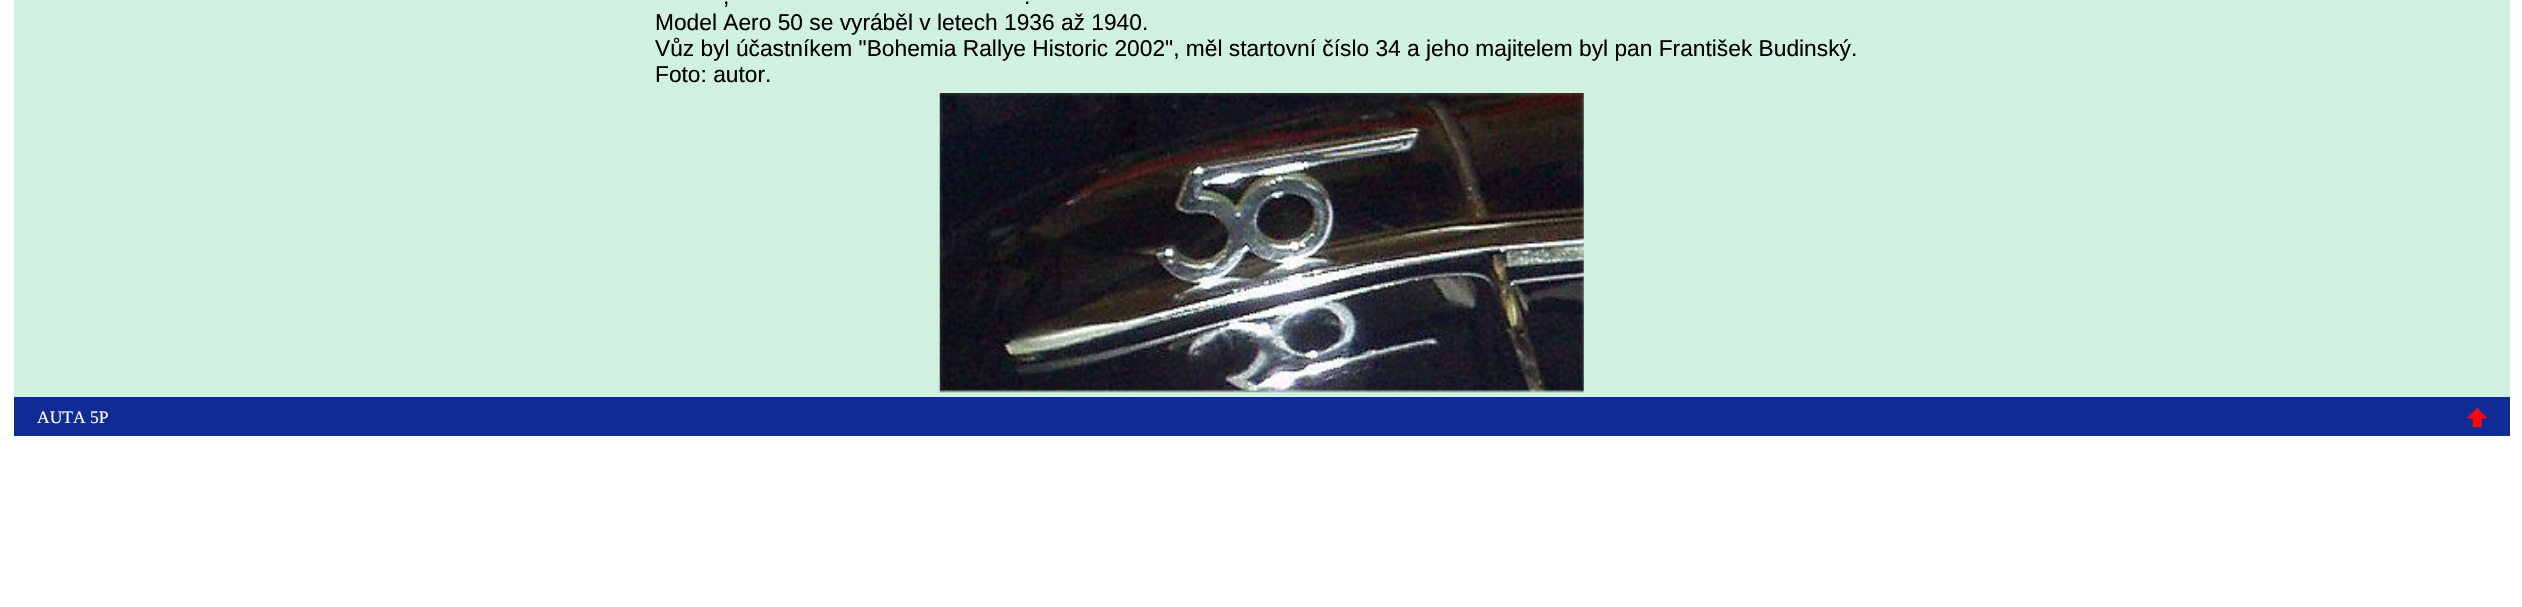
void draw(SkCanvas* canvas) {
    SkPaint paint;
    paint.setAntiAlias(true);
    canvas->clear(0xFFFFFFFF);
    paint.setColor(0xFFD0F0E0);
    canvas->drawRect(SkRect::MakeXYWH(14, 0, 2496, 397), paint);
    SkFont font1(fontMgr->matchFamilyStyle("Liberation Sans", SkFontStyle::Normal()), 22.75f);
    font1.setSubpixel(true);
    paint.setColor(0xFF000000);
    canvas->drawString(",", 723, 4, font1, paint);
    canvas->drawString(".", 1024, 4, font1, paint);
    canvas->drawString("Model Aero 50 se vyráběl v letech 1936 až 1940.", 655, 30, font1, paint);
    canvas->drawString("Vůz byl účastníkem \"Bohemia Rallye Historic 2002\", měl startovní číslo 34 a jeho majitelem byl pan František Budinský.", 655, 56, font1, paint);
    canvas->drawString("Foto: autor.", 655, 82, font1, paint);
    canvas->drawImageRect(SkImages::DeferredFromEncodedData(SkData::MakeFromFileName("img1.png")), SkRect::MakeXYWH(939, 93, 645, 300), SkSamplingOptions());
    paint.setColor(0xFF0E2B96);
    canvas->drawRect(SkRect::MakeXYWH(14, 397, 2496, 39), paint);
    SkFont font2(fontMgr->matchFamilyStyle("Liberation Serif", SkFontStyle::Normal()), 17.5f);
    font2.setSubpixel(true);
    paint.setColor(0xFFFFFFFF);
    canvas->drawString("AUTA 5P", 37, 423, font2, paint);
    canvas->drawImageRect(SkImages::DeferredFromEncodedData(SkData::MakeFromFileName("img2.png")), SkRect::MakeXYWH(2467, 408, 20, 20), SkSamplingOptions());
}
